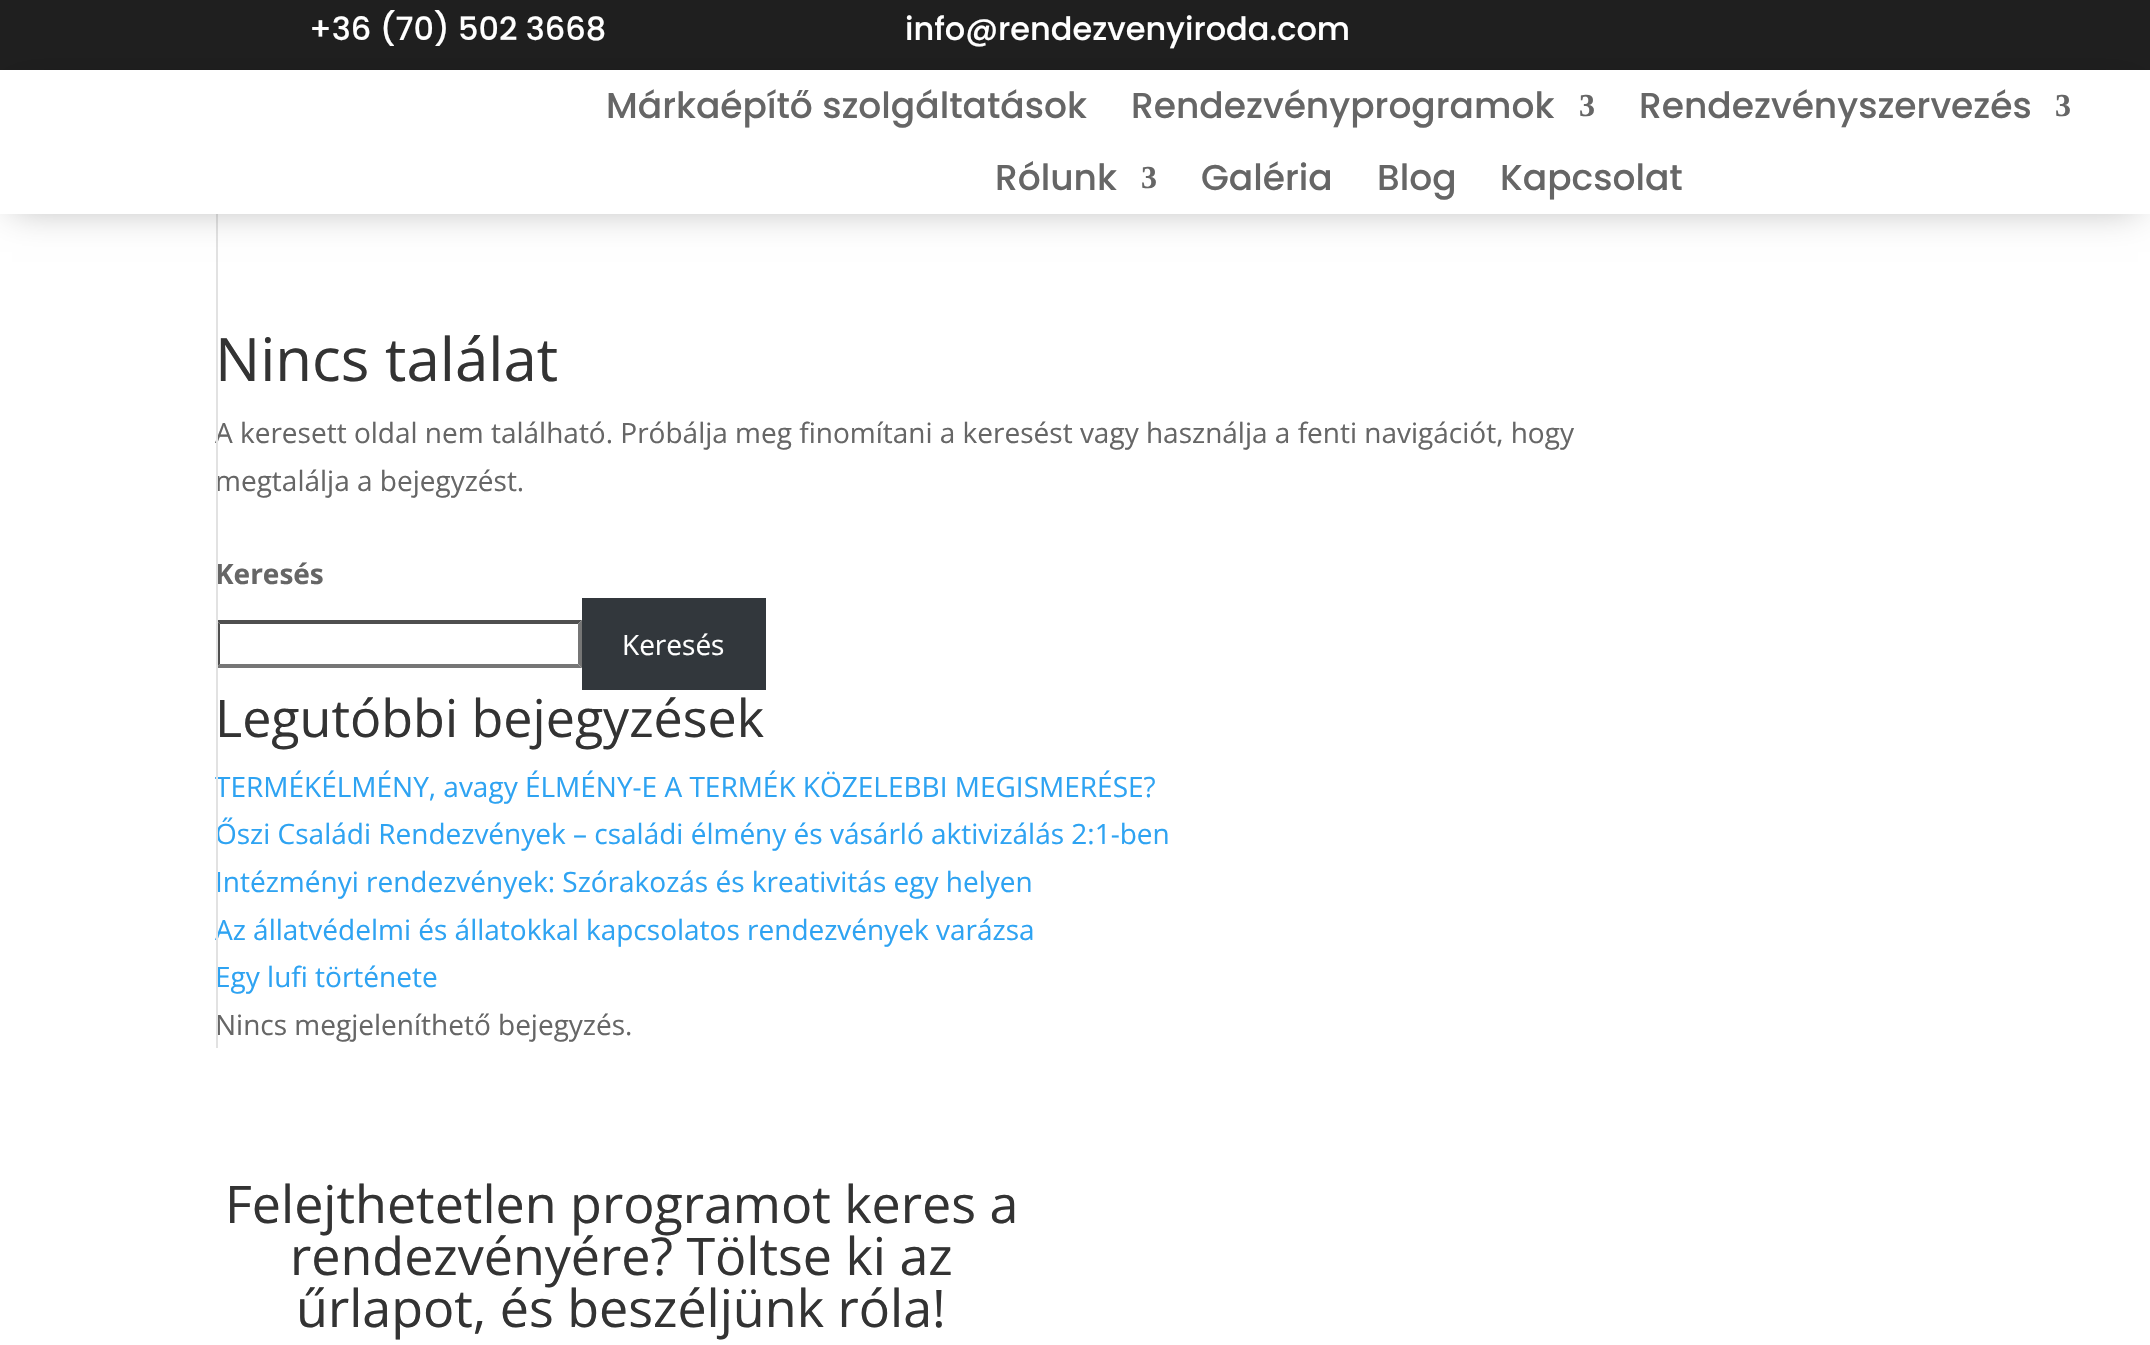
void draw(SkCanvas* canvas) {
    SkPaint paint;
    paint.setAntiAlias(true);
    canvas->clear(0xFFFFFFFF);
    paint.setColor(0xFF1F1F1F);
    canvas->drawRect(SkRect::MakeXYWH(0, 0, 2150, 70), paint);
    SkFont font1(fontMgr->matchFamilyStyle("Poppins", SkFontStyle(500, SkFontStyle::kNormal_Width, SkFontStyle::kUpright_Slant)), 32);
    font1.setSubpixel(true);
    paint.setColor(0xFFFFFFFF);
    canvas->drawString("+36 (70) 502 3668", 309, 40, font1, paint);
    canvas->drawString("info@rendezvenyiroda.com", 905, 40, font1, paint);
    SkFont font2(fontMgr->matchFamilyStyle("Open Sans", SkFontStyle::Normal()), 28);
    font2.setSubpixel(true);
    paint.setColor(0xFF666666);
    canvas->drawString("A keresett oldal nem található. Próbálja meg finomítani a keresést vagy használja a fenti navigációt, hogy", 215, 443, font2, paint);
    canvas->drawString("megtalálja a bejegyzést.", 215, 491, font2, paint);
    SkFont font3(fontMgr->matchFamilyStyle("Open Sans", SkFontStyle::Bold()), 28);
    font3.setSubpixel(true);
    canvas->drawString("Keresés", 215, 584, font3, paint);
    paint.setColor(0xFF4F4F4F);
    canvas->drawPath(SkPathBuilder().moveTo(216, 620).lineTo(582, 620).lineTo(578, 624).lineTo(220, 624).close().detach(), paint);
    paint.setColor(0xFF767676);
    canvas->drawPath(SkPathBuilder().moveTo(582, 620).lineTo(582, 668).lineTo(578, 664).lineTo(578, 624).close().detach(), paint);
    canvas->drawPath(SkPathBuilder().moveTo(582, 668).lineTo(216, 668).lineTo(220, 664).lineTo(578, 664).close().detach(), paint);
    paint.setColor(0xFF4F4F4F);
    canvas->drawPath(SkPathBuilder().moveTo(216, 668).lineTo(216, 620).lineTo(220, 624).lineTo(220, 664).close().detach(), paint);
    paint.setColor(0xFF2EA3F2);
    canvas->drawString("TERMÉKÉLMÉNY, avagy ÉLMÉNY-E A TERMÉK KÖZELEBBI MEGISMERÉSE?", 215, 797, font2, paint);
    canvas->drawString("Őszi Családi Rendezvények – családi élmény és vásárló aktivizálás 2:1-ben", 215, 844, font2, paint);
    canvas->drawString("Intézményi rendezvények: Szórakozás és kreativitás egy helyen", 215, 892, font2, paint);
    canvas->drawString("Az állatvédelmi és állatokkal kapcsolatos rendezvények varázsa", 215, 940, font2, paint);
    canvas->drawString("Egy lufi története", 215, 987, font2, paint);
    paint.setColor(0xFF666666);
    canvas->drawString("Nincs megjeleníthető bejegyzés.", 215, 1035, font2, paint);
    paint.setColor(0xFFE2E2E2);
    canvas->drawRect(SkRect::MakeXYWH(216, 214, 2, 834), paint);
    paint.setColor(0x4D000000);
    paint.setMaskFilter(SkMaskFilter::MakeBlur(kNormal_SkBlurStyle, 18));
    canvas->drawRect(SkRect::MakeXYWH(12, 88, 2126, 120), paint);
    paint.setMaskFilter(nullptr);
    paint.setColor(0xFFFFFFFF);
    canvas->drawRect(SkRect::MakeXYWH(0, 70, 2150, 144), paint);
    SkFont font4(fontMgr->matchFamilyStyle("Poppins", SkFontStyle(500, SkFontStyle::kNormal_Width, SkFontStyle::kUpright_Slant)), 36);
    font4.setSubpixel(true);
    paint.setColor(0xFF666666);
    canvas->drawString("Márkaépítő szolgáltatások", 606, 118, font4, paint);
    canvas->drawString("Rendezvényprogramok", 1131, 118, font4, paint);
    SkFont font5(fontMgr->matchFamilyStyle("Liberation Serif", SkFontStyle::Bold()), 32);
    font5.setSubpixel(true);
    canvas->drawString("3", 1579, 116, font5, paint);
    canvas->drawString("Rendezvényszervezés", 1639, 118, font4, paint);
    canvas->drawString("3", 2055, 116, font5, paint);
    canvas->drawString("Rólunk", 995, 190, font4, paint);
    canvas->drawString("3", 1141, 188, font5, paint);
    canvas->drawString("Galéria", 1201, 190, font4, paint);
    canvas->drawString("Blog", 1377, 190, font4, paint);
    canvas->drawString("Kapcsolat", 1500, 190, font4, paint);
    SkFont font6(fontMgr->matchFamilyStyle("Open Sans", SkFontStyle::Normal()), 60);
    font6.setSubpixel(true);
    paint.setColor(0xFF333333);
    canvas->drawString("Nincs találat", 215, 381, font6, paint);
    paint.setColor(0xFF32373C);
    canvas->drawRect(SkRect::MakeXYWH(582, 598, 184, 92), paint);
    paint.setColor(0xFFFFFFFF);
    canvas->drawString("Keresés", 622, 655, font2, paint);
    SkFont font7(fontMgr->matchFamilyStyle("Open Sans", SkFontStyle::Normal()), 52);
    font7.setSubpixel(true);
    paint.setColor(0xFF333333);
    canvas->drawString("Legutóbbi bejegyzések", 215, 737, font7, paint);
    canvas->drawString("Felejthetetlen programot keres a", 225, 1223, font7, paint);
    canvas->drawString("rendezvényére? Töltse ki az", 290, 1275, font7, paint);
    canvas->drawString("űrlapot, és beszéljünk róla!", 296, 1327, font7, paint);
}
